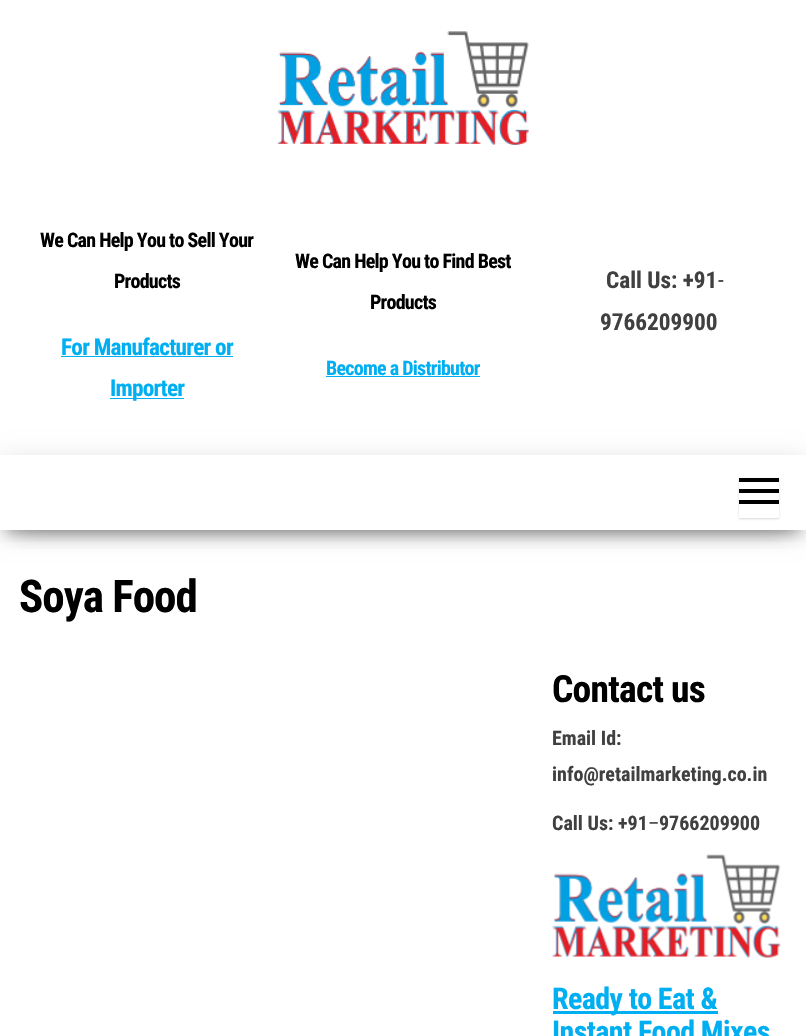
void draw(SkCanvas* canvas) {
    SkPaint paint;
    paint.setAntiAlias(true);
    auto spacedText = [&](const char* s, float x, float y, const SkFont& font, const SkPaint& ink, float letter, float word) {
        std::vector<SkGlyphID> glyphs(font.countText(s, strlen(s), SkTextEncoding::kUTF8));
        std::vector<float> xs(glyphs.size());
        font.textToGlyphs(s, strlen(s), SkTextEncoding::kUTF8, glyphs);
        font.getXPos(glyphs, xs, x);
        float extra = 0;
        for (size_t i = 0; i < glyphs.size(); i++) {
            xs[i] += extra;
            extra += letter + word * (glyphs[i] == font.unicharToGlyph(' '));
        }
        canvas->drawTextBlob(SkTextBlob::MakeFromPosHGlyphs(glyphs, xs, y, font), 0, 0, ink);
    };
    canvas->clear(0xFFFFFFFF);
    canvas->drawImageRect(SkImages::DeferredFromEncodedData(SkData::MakeFromFileName("img1.png")), SkRect::MakeXYWH(277, 31, 252, 114), SkSamplingOptions());
    SkFont font1(fontMgr->matchFamilyStyle("Roboto Condensed", SkFontStyle::Bold()), 20);
    font1.setSubpixel(true);
    paint.setColor(0xFF000000);
    spacedText("We Can Help You to Sell Your", 40, 247, font1, paint, -0.75f, 0);
    spacedText("Products", 114, 288, font1, paint, -0.75f, 0);
    SkFont font2(fontMgr->matchFamilyStyle("Roboto Condensed", SkFontStyle::Bold()), 23.25f);
    font2.setSubpixel(true);
    paint.setColor(0xFF00AFF2);
    spacedText("For Manufacturer or", 61, 355, font2, paint, -0.75f, 0);
    canvas->drawRect(SkRect::MakeXYWH(61, 356, 172, 1), paint);
    canvas->drawRect(SkRect::MakeXYWH(110, 398, 74, 1), paint);
    spacedText("Importer", 110, 396, font2, paint, -0.75f, 0);
    paint.setColor(0xFF000000);
    spacedText("We Can Help You to Find Best", 295, 268, font1, paint, -0.75f, 0);
    spacedText("Products", 370, 309, font1, paint, -0.75f, 0);
    paint.setColor(0xFF00AFF2);
    spacedText("Become a Distributor", 326, 375, font1, paint, -0.75f, 0);
    canvas->drawRect(SkRect::MakeXYWH(326, 376, 154, 1), paint);
    paint.setColor(0xFF404040);
    canvas->drawString("Call Us: +91", 606, 288, font2, paint);
    SkFont font3(fontMgr->matchFamilyStyle("Roboto Condensed", SkFontStyle::Normal()), 23.25f);
    font3.setSubpixel(true);
    canvas->drawString("-", 718, 288, font3, paint);
    canvas->drawString("9766209900", 600, 330, font2, paint);
    canvas->save();
    canvas->clipRect(SkRect::MakeXYWH(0, 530, 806, 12));
    paint.setColor(0x33000000);
    paint.setMaskFilter(SkMaskFilter::MakeBlur(kNormal_SkBlurStyle, 6));
    canvas->drawRect(SkRect::MakeXYWH(6, 471, 794, 63), paint);
    paint.setMaskFilter(nullptr);
    canvas->restore();
    canvas->save();
    canvas->clipPath(SkPathBuilder(SkPathFillType::kEvenOdd).moveTo(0, 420).lineTo(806, 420).lineTo(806, 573).lineTo(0, 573).close().moveTo(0, 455).lineTo(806, 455).lineTo(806, 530).lineTo(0, 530).close().detach(), true);
    paint.setColor(0x1F000000);
    paint.setMaskFilter(SkMaskFilter::MakeBlur(kNormal_SkBlurStyle, 12.5f));
    canvas->drawRect(SkRect::MakeXYWH(0, 459, 806, 75), paint);
    paint.setMaskFilter(nullptr);
    canvas->restore();
    canvas->save();
    canvas->clipRect(SkRect::MakeXYWH(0, 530, 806, 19));
    paint.setColor(0x6B000000);
    paint.setMaskFilter(SkMaskFilter::MakeBlur(kNormal_SkBlurStyle, 12.5f));
    canvas->drawRect(SkRect::MakeXYWH(15, 483, 776, 45), paint);
    paint.setMaskFilter(nullptr);
    canvas->restore();
    canvas->save();
    canvas->clipPath(SkPathBuilder(SkPathFillType::kEvenOdd).moveTo(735, 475).lineTo(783, 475).lineTo(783, 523).lineTo(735, 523).close().moveTo(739, 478).lineTo(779, 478).lineTo(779, 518).lineTo(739, 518).close().detach(), true);
    paint.setColor(0x26000000);
    paint.setMaskFilter(SkMaskFilter::MakeBlur(kNormal_SkBlurStyle, 1));
    canvas->drawRect(SkRect::MakeXYWH(739, 479, 40, 40), paint);
    paint.setMaskFilter(nullptr);
    canvas->restore();
    paint.setColor(0xFF000000);
    canvas->drawRect(SkRect::MakeXYWH(739, 478, 40, 4), paint);
    canvas->drawRect(SkRect::MakeXYWH(739, 489, 40, 4), paint);
    canvas->drawRect(SkRect::MakeXYWH(739, 500, 40, 4), paint);
    SkFont font4(fontMgr->matchFamilyStyle("Roboto Condensed", SkFontStyle::Bold()), 45);
    font4.setSubpixel(true);
    spacedText("Soya Food", 19, 612, font4, paint, -1, 0);
    SkFont font5(fontMgr->matchFamilyStyle("Roboto Condensed", SkFontStyle::Bold()), 37.5f);
    font5.setSubpixel(true);
    spacedText("Contact us", 552, 702, font5, paint, -0.75f, 0);
    paint.setColor(0xFF404040);
    canvas->drawString("Email Id:", 552, 745, font1, paint);
    canvas->drawString("info@retailmarketing.co.in", 552, 781, font1, paint);
    canvas->drawString("Call Us: +91", 552, 830, font1, paint);
    SkFont font6(fontMgr->matchFamilyStyle("Roboto Condensed", SkFontStyle::Normal()), 20);
    font6.setSubpixel(true);
    canvas->drawString("–", 648, 830, font6, paint);
    canvas->drawString("9766209900", 659, 830, font1, paint);
    canvas->drawImageRect(SkImages::DeferredFromEncodedData(SkData::MakeFromFileName("img2.png")), SkRect::MakeXYWH(552, 854, 229, 104), SkSamplingOptions());
    paint.setColor(0xFF00AFF2);
    canvas->drawRect(SkRect::MakeXYWH(553, 1011, 165, 3), paint);
    SkFont font7(fontMgr->matchFamilyStyle("Roboto Condensed", SkFontStyle::Bold()), 30);
    font7.setSubpixel(true);
    spacedText("Ready to Eat &", 552, 1009, font7, paint, -0.6f, 0);
    spacedText("Instant Food Mixes", 552, 1042, font7, paint, -0.6f, 0);
}
